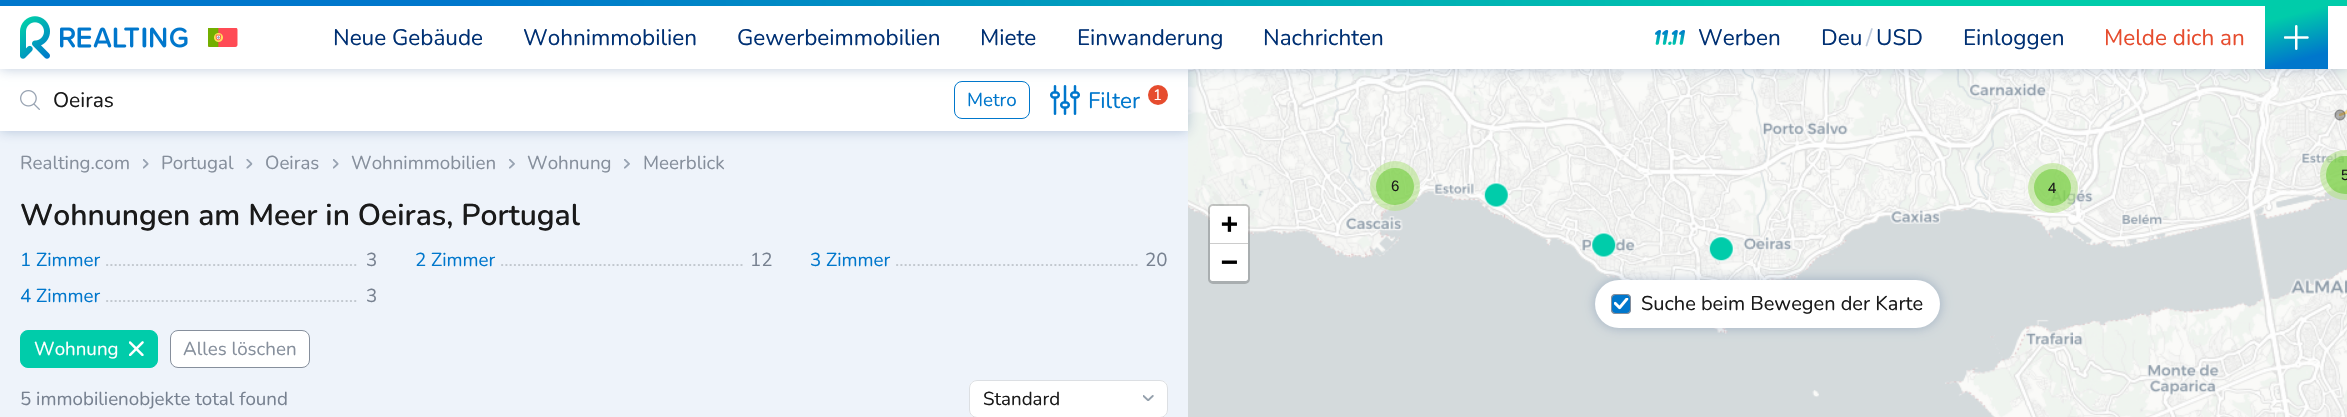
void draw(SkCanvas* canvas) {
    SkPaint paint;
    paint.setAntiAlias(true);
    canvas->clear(0xFFEEF3FA);
    canvas->drawImageRect(SkImages::DeferredFromEncodedData(SkData::MakeFromFileName("img12.png")), SkRect::MakeXYWH(1188, 69, 245, 207), SkSamplingOptions());
    paint.setColor(0x40003073);
    paint.setMaskFilter(SkMaskFilter::MakeBlur(kNormal_SkBlurStyle, 6));
    canvas->drawRect(SkRect::MakeXYWH(0, 69, 1188, 62), paint);
    paint.setMaskFilter(nullptr);
    paint.setColor(0xFFFFFFFF);
    canvas->drawRect(SkRect::MakeXYWH(0, 69, 1188, 62), paint);
    paint.setStyle(SkPaint::kStroke_Style);
    paint.setStrokeWidth(1);
    paint.setColor(0xFF0077CC);
    canvas->drawRoundRect(SkRect::MakeXYWH(954.5f, 81.5f, 75, 37), 7.5f, 7.5f, paint);
    canvas->drawImageRect(SkImages::DeferredFromEncodedData(SkData::MakeFromFileName("img6.png")), SkRect::MakeXYWH(1050, 85, 30, 30), SkSamplingOptions());
    paint.setStyle(SkPaint::kFill_Style);
    paint.setColor(0xFFE64C2E);
    canvas->drawCircle(1158, 95, 10, paint);
    canvas->drawImageRect(SkImages::DeferredFromEncodedData(SkData::MakeFromFileName("img13.png")), SkRect::MakeXYWH(1433, 69, 320, 207), SkSamplingOptions());
    canvas->drawImageRect(SkImages::DeferredFromEncodedData(SkData::MakeFromFileName("img14.png")), SkRect::MakeXYWH(1753, 69, 320, 207), SkSamplingOptions());
    canvas->drawImageRect(SkImages::DeferredFromEncodedData(SkData::MakeFromFileName("img15.png")), SkRect::MakeXYWH(2073, 69, 274, 207), SkSamplingOptions());
    paint.setColor(0x40003073);
    paint.setMaskFilter(SkMaskFilter::MakeBlur(kNormal_SkBlurStyle, 6));
    canvas->drawRect(SkRect::MakeXYWH(0, 6, 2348, 63), paint);
    paint.setMaskFilter(nullptr);
    paint.setColor(0xFFFFFFFF);
    canvas->drawRect(SkRect::MakeXYWH(0, 6, 2347, 63), paint);
    {
        const SkColor colors[] = {0xFF0077CC, 0xFF00CCAA};
        const float stops[] = {0.2f, 0.8f};
        const SkPoint ends[] = {{0, 3.1f}, {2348, 3.1f}};
        paint.setShader(SkGradientShader::MakeLinear(ends, colors, stops, 2, SkTileMode::kClamp));
        paint.setAlpha(255);
    }
    canvas->drawRect(SkRect::MakeXYWH(0, 0, 2347, 6), paint);
    canvas->drawImageRect(SkImages::DeferredFromEncodedData(SkData::MakeFromFileName("img1.png")), SkRect::MakeXYWH(20, 16, 168, 43), SkSamplingOptions());
    canvas->drawImageRect(SkImages::DeferredFromEncodedData(SkData::MakeFromFileName("img2.png")), SkRect::MakeXYWH(208, 28, 30, 19), SkSamplingOptions());
    SkFont font1(fontMgr->matchFamilyStyle("Nunito", SkFontStyle::Normal()), 22.5f);
    font1.setSubpixel(true);
    paint.setShader(nullptr);
    paint.setColor(0xFF003073);
    canvas->drawString("Neue Gebäude", 333, 45, font1, paint);
    canvas->drawString("Wohnimmobilien", 523, 45, font1, paint);
    canvas->drawString("Gewerbeimmobilien", 737, 45, font1, paint);
    canvas->drawString("Miete", 980, 45, font1, paint);
    canvas->drawString("Einwanderung", 1077, 45, font1, paint);
    canvas->drawString("Nachrichten", 1263, 45, font1, paint);
    canvas->drawImageRect(SkImages::DeferredFromEncodedData(SkData::MakeFromFileName("img3.png")), SkRect::MakeXYWH(1655, 30, 30, 15), SkSamplingOptions());
    canvas->drawString("Werben", 1698, 45, font1, paint);
    canvas->drawString("Deu", 1821, 45, font1, paint);
    paint.setColor(0xFFBFCBDC);
    canvas->drawString("/", 1866, 45, font1, paint);
    paint.setColor(0xFF003073);
    canvas->drawString("USD", 1876, 45, font1, paint);
    canvas->drawString("Einloggen", 1963, 45, font1, paint);
    paint.setColor(0xFFE64C2E);
    canvas->drawString("Melde dich an", 2104, 45, font1, paint);
    {
        const SkColor colors[] = {0xFF00CCAA, 0xFF0077CC};
        const float stops[] = {0.2f, 0.8f};
        const SkPoint ends[] = {{2286, 0.5f}, {2306, 74}};
        paint.setShader(SkGradientShader::MakeLinear(ends, colors, stops, 2, SkTileMode::kClamp));
        paint.setAlpha(255);
    }
    canvas->drawRect(SkRect::MakeXYWH(2265, 6, 63, 63), paint);
    canvas->drawImageRect(SkImages::DeferredFromEncodedData(SkData::MakeFromFileName("img4.png")), SkRect::MakeXYWH(2284, 25, 25, 25), SkSamplingOptions());
    canvas->drawImageRect(SkImages::DeferredFromEncodedData(SkData::MakeFromFileName("img5.png")), SkRect::MakeXYWH(20, 90, 20, 20), SkSamplingOptions());
    SkFont font2(fontMgr->matchFamilyStyle("Nunito", SkFontStyle::Normal()), 21);
    font2.setSubpixel(true);
    paint.setShader(nullptr);
    paint.setColor(0xFF1A1A1A);
    canvas->drawString("Oeiras", 53, 107, font2, paint);
    SkFont font3(fontMgr->matchFamilyStyle("Nunito", SkFontStyle::Normal()), 18.75f);
    font3.setSubpixel(true);
    paint.setColor(0xFF0077CC);
    canvas->drawString("Metro", 967, 106, font3, paint);
    canvas->drawString("Filter", 1088, 108, font1, paint);
    SkFont font4(fontMgr->matchFamilyStyle("Nunito", SkFontStyle::Normal()), 15);
    font4.setSubpixel(true);
    paint.setColor(0xFFFFFFFF);
    canvas->drawString("1", 1153, 100, font4, paint);
    paint.setColor(0xFF868F9C);
    canvas->drawString("Realting.com", 20, 169, font3, paint);
    canvas->drawImageRect(SkImages::DeferredFromEncodedData(SkData::MakeFromFileName("img7.png")), SkRect::MakeXYWH(143, 159, 6, 10), SkSamplingOptions());
    canvas->drawString("Portugal", 161, 169, font3, paint);
    canvas->drawImageRect(SkImages::DeferredFromEncodedData(SkData::MakeFromFileName("img8.png")), SkRect::MakeXYWH(246, 159, 7, 10), SkSamplingOptions());
    canvas->drawString("Oeiras", 265, 169, font3, paint);
    canvas->drawImageRect(SkImages::DeferredFromEncodedData(SkData::MakeFromFileName("img7.png")), SkRect::MakeXYWH(333, 159, 6, 10), SkSamplingOptions());
    canvas->drawString("Wohnimmobilien", 351, 169, font3, paint);
    canvas->drawImageRect(SkImages::DeferredFromEncodedData(SkData::MakeFromFileName("img9.png")), SkRect::MakeXYWH(509, 159, 6, 10), SkSamplingOptions());
    canvas->drawString("Wohnung", 527, 169, font3, paint);
    canvas->drawImageRect(SkImages::DeferredFromEncodedData(SkData::MakeFromFileName("img9.png")), SkRect::MakeXYWH(624, 159, 6, 10), SkSamplingOptions());
    canvas->drawString("Meerblick", 643, 169, font3, paint);
    SkFont font5(fontMgr->matchFamilyStyle("Nunito", SkFontStyle(600, SkFontStyle::kNormal_Width, SkFontStyle::kUpright_Slant)), 30);
    font5.setSubpixel(true);
    paint.setColor(0xFF1A1A1A);
    canvas->drawString("Wohnungen am Meer in Oeiras, Portugal", 20, 225, font5, paint);
    paint.setColor(0xFF0077CC);
    canvas->drawString("1 Zimmer", 20, 266, font3, paint);
    paint.setColor(0xFFC1C7CE);
    canvas->drawString("........................................................…", 105, 266, font3, paint);
    paint.setColor(0xFF778190);
    canvas->drawString("3", 366, 266, font3, paint);
    paint.setColor(0xFF0077CC);
    canvas->drawString("2 Zimmer", 415, 266, font3, paint);
    paint.setColor(0xFFC1C7CE);
    canvas->drawString("......................................................…", 500, 266, font3, paint);
    paint.setColor(0xFF778190);
    canvas->drawString("12", 750, 266, font3, paint);
    paint.setColor(0xFF0077CC);
    canvas->drawString("3 Zimmer", 810, 266, font3, paint);
    paint.setColor(0xFFC1C7CE);
    canvas->drawString("......................................................…", 895, 266, font3, paint);
    paint.setColor(0xFF778190);
    canvas->drawString("20", 1145, 266, font3, paint);
    paint.setColor(0xFF0077CC);
    canvas->drawString("4 Zimmer", 20, 302, font3, paint);
    paint.setColor(0xFFC1C7CE);
    canvas->drawString("........................................................…", 105, 302, font3, paint);
    paint.setColor(0xFF778190);
    canvas->drawString("3", 366, 302, font3, paint);
    paint.setColor(0xFF00CCAA);
    canvas->drawRoundRect(SkRect::MakeXYWH(20.5f, 330.5f, 137, 37), 7.5f, 7.5f, paint);
    paint.setStyle(SkPaint::kStroke_Style);
    canvas->drawRoundRect(SkRect::MakeXYWH(20.5f, 330.5f, 137, 37), 7.5f, 7.5f, paint);
    paint.setStyle(SkPaint::kFill_Style);
    paint.setColor(0xFFFFFFFF);
    canvas->drawString("Wohnung", 34, 355, font3, paint);
    canvas->drawImageRect(SkImages::DeferredFromEncodedData(SkData::MakeFromFileName("img10.png")), SkRect::MakeXYWH(129, 341, 15, 15), SkSamplingOptions());
    canvas->drawRoundRect(SkRect::MakeXYWH(170.5f, 330.5f, 139, 37), 7.5f, 7.5f, paint);
    paint.setStyle(SkPaint::kStroke_Style);
    paint.setColor(0xFF868F9C);
    canvas->drawRoundRect(SkRect::MakeXYWH(170.5f, 330.5f, 139, 37), 7.5f, 7.5f, paint);
    paint.setStyle(SkPaint::kFill_Style);
    canvas->drawString("Alles löschen", 183, 355, font3, paint);
    paint.setColor(0xFF778190);
    canvas->drawString("5 immobilienobjekte total found", 20, 405, font3, paint);
    paint.setColor(0xFFFFFFFF);
    canvas->drawRoundRect(SkRect::MakeXYWH(969, 380, 199, 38), 8, 8, paint);
    canvas->drawImageRect(SkImages::DeferredFromEncodedData(SkData::MakeFromFileName("img11.png")), SkRect::MakeXYWH(1143, 395, 11, 6), SkSamplingOptions());
    paint.setStyle(SkPaint::kStroke_Style);
    paint.setColor(0xFFDCDFE3);
    canvas->drawRoundRect(SkRect::MakeXYWH(969.5f, 380.5f, 198, 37), 7.5f, 7.5f, paint);
    paint.setStyle(SkPaint::kFill_Style);
    paint.setColor(0xFF1A1A1A);
    canvas->drawString("Standard", 983, 405, font3, paint);
    paint.setColor(0xFFD4DADC);
    canvas->drawRect(SkRect::MakeXYWH(1188, 276, 245, 141), paint);
    canvas->drawImageRect(SkImages::DeferredFromEncodedData(SkData::MakeFromFileName("img16.png")), SkRect::MakeXYWH(1433, 276, 320, 141), SkSamplingOptions());
    canvas->drawImageRect(SkImages::DeferredFromEncodedData(SkData::MakeFromFileName("img17.png")), SkRect::MakeXYWH(1753, 276, 320, 141), SkSamplingOptions());
    canvas->drawImageRect(SkImages::DeferredFromEncodedData(SkData::MakeFromFileName("img18.png")), SkRect::MakeXYWH(2073, 276, 274, 141), SkSamplingOptions());
    canvas->drawImageRect(SkImages::DeferredFromEncodedData(SkData::MakeFromFileName("img19.png")), SkRect::MakeXYWH(2334, 109, 13, 12), SkSamplingOptions());
    paint.setColor(0x99B5E28C);
    canvas->drawCircle(2345, 175, 25, paint);
    paint.setColor(0x996ECC39);
    canvas->drawCircle(2345, 175, 19, paint);
    SkFont font6(fontMgr->matchFamilyStyle("Liberation Sans", SkFontStyle::Normal()), 15);
    font6.setSubpixel(true);
    paint.setColor(0xFF1A1A1A);
    canvas->drawString("5", 2341, 180, font6, paint);
    paint.setColor(0x99B5E28C);
    canvas->drawCircle(1395, 186, 25, paint);
    paint.setColor(0x996ECC39);
    canvas->drawRoundRect(SkRect::MakeXYWH(1376, 168, 38, 37), 18.5f, 18.5f, paint);
    paint.setColor(0xFF1A1A1A);
    canvas->drawString("6", 1391, 191, font6, paint);
    canvas->drawImageRect(SkImages::DeferredFromEncodedData(SkData::MakeFromFileName("img20.png")), SkRect::MakeXYWH(1483, 182, 26, 26), SkSamplingOptions());
    paint.setColor(0x99B5E28C);
    canvas->drawCircle(2053, 188, 25, paint);
    paint.setColor(0x996ECC39);
    canvas->drawCircle(2052.5f, 187.5f, 18.5f, paint);
    paint.setColor(0xFF1A1A1A);
    canvas->drawString("4", 2048, 193, font6, paint);
    canvas->drawImageRect(SkImages::DeferredFromEncodedData(SkData::MakeFromFileName("img21.png")), SkRect::MakeXYWH(1591, 232, 26, 26), SkSamplingOptions());
    canvas->drawImageRect(SkImages::DeferredFromEncodedData(SkData::MakeFromFileName("img22.png")), SkRect::MakeXYWH(1708, 236, 26, 26), SkSamplingOptions());
    paint.setStyle(SkPaint::kStroke_Style);
    paint.setStrokeWidth(3);
    paint.setColor(0x33000000);
    canvas->drawRoundRect(SkRect::MakeXYWH(1209.5f, 205.5f, 39, 77), 3.5f, 3.5f, paint);
    paint.setStyle(SkPaint::kFill_Style);
    paint.setColor(0xFFFFFFFF);
    canvas->drawPath(SkPathBuilder().moveTo(1212.5f, 206).lineTo(1245.5f, 206).cubicTo(1247, 206, 1248, 207, 1248, 208.5f).lineTo(1248, 244).lineTo(1210, 244).lineTo(1210, 208.5f).cubicTo(1210, 207, 1211, 206, 1212.5f, 206).close().detach(), paint);
    paint.setColor(0xFFCCCCCC);
    canvas->drawRect(SkRect::MakeXYWH(1210, 243, 38, 1), paint);
    SkFont font7(fontMgr->matchFamilyStyle("DejaVu Sans Mono", SkFontStyle::Bold()), 28);
    font7.setSubpixel(true);
    paint.setColor(0xFF000000);
    canvas->drawString("+", 1221, 233, font7, paint);
    paint.setColor(0xFFFFFFFF);
    canvas->drawPath(SkPathBuilder().moveTo(1210, 244).lineTo(1248, 244).lineTo(1248, 278.5f).cubicTo(1248, 280, 1247, 281, 1245.5f, 281).lineTo(1212.5f, 281).cubicTo(1211, 281, 1210, 280, 1210, 278.5f).close().detach(), paint);
    paint.setColor(0xFF000000);
    canvas->drawString("−", 1221, 271, font7, paint);
    paint.setColor(0x40003073);
    paint.setMaskFilter(SkMaskFilter::MakeBlur(kNormal_SkBlurStyle, 6));
    canvas->drawRoundRect(SkRect::MakeXYWH(1595, 280, 345, 48), 24, 24, paint);
    paint.setMaskFilter(nullptr);
    paint.setColor(0xFFFFFFFF);
    canvas->drawRoundRect(SkRect::MakeXYWH(1595, 280, 345, 48), 24, 24, paint);
    paint.setColor(0xFF0077CC);
    canvas->drawRoundRect(SkRect::MakeXYWH(1611.5f, 294.5f, 19, 19), 3.5f, 3.5f, paint);
    paint.setStyle(SkPaint::kStroke_Style);
    paint.setStrokeWidth(1);
    paint.setColor(0xFF868F9C);
    canvas->drawRoundRect(SkRect::MakeXYWH(1611.5f, 294.5f, 19, 19), 3.5f, 3.5f, paint);
    canvas->drawImageRect(SkImages::DeferredFromEncodedData(SkData::MakeFromFileName("img23.png")), SkRect::MakeXYWH(1614, 298, 15, 12), SkSamplingOptions());
    canvas->drawRoundRect(SkRect::MakeXYWH(1611.5f, 294.5f, 19, 19), 3.5f, 3.5f, paint);
    SkFont font8(fontMgr->matchFamilyStyle("Nunito", SkFontStyle::Normal()), 20);
    font8.setSubpixel(true);
    paint.setStyle(SkPaint::kFill_Style);
    paint.setColor(0xFF1A1A1A);
    canvas->drawString("Suche beim Bewegen der Karte", 1641, 310, font8, paint);
}
